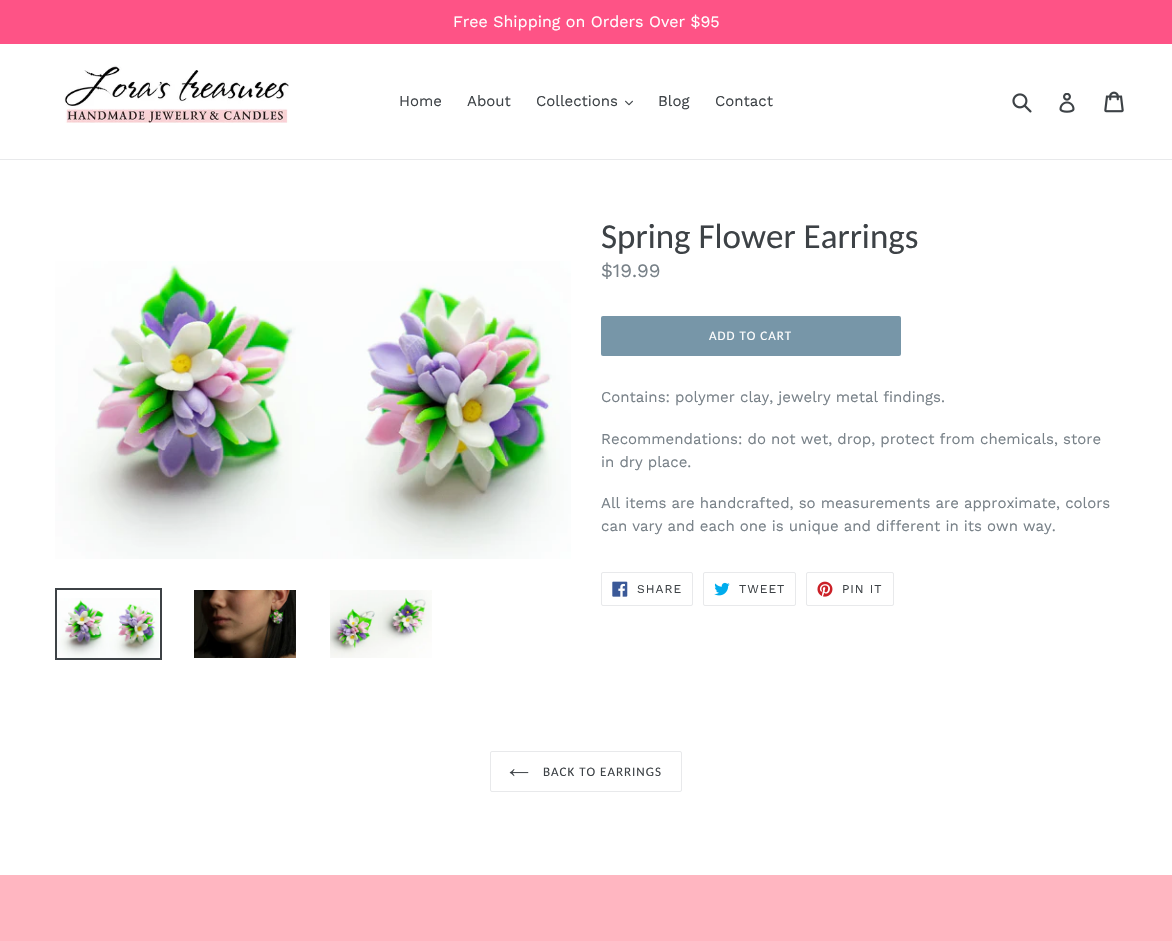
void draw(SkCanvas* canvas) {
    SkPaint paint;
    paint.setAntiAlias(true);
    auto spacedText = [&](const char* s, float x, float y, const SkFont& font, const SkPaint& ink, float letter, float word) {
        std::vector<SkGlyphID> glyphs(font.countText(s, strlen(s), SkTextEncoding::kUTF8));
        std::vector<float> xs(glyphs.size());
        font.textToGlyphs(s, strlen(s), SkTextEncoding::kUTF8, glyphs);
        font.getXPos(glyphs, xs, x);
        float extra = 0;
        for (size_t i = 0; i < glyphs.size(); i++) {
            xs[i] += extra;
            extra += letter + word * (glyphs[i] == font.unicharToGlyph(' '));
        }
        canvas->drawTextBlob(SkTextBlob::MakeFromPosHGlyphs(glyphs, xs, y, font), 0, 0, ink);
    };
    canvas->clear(0xFFFFFFFF);
    paint.setColor(0xFFFE5386);
    canvas->drawRect(SkRect::MakeXYWH(0, 0, 1172, 44), paint);
    SkFont font1(fontMgr->matchFamilyStyle("Work Sans", SkFontStyle::Normal()), 16);
    font1.setSubpixel(true);
    paint.setColor(0xFFFFFFFF);
    canvas->drawString("Free Shipping on Orders Over $95", 453, 27, font1, paint);
    paint.setColor(0xFFE8E9EB);
    canvas->drawRect(SkRect::MakeXYWH(0, 159, 1172, 1), paint);
    canvas->drawImageRect(SkImages::DeferredFromEncodedData(SkData::MakeFromFileName("img1.png")), SkRect::MakeXYWH(64, 65, 225, 58), SkSamplingOptions());
    SkFont font2(fontMgr->matchFamilyStyle("Work Sans", SkFontStyle::Normal()), 15);
    font2.setSubpixel(true);
    paint.setColor(0xFF3D4246);
    canvas->drawString("Home", 399, 106, font2, paint);
    canvas->drawString("About", 467, 106, font2, paint);
    canvas->drawString("Collections", 536, 106, font2, paint);
    canvas->drawImageRect(SkImages::DeferredFromEncodedData(SkData::MakeFromFileName("img2.png")), SkRect::MakeXYWH(625, 100, 8, 6), SkSamplingOptions());
    canvas->drawString("Blog", 658, 106, font2, paint);
    canvas->drawString("Contact", 715, 106, font2, paint);
    canvas->drawImageRect(SkImages::DeferredFromEncodedData(SkData::MakeFromFileName("img3.png")), SkRect::MakeXYWH(1012, 93, 20, 20), SkSamplingOptions());
    canvas->drawImageRect(SkImages::DeferredFromEncodedData(SkData::MakeFromFileName("img4.png")), SkRect::MakeXYWH(1059, 93, 16, 20), SkSamplingOptions());
    canvas->drawImageRect(SkImages::DeferredFromEncodedData(SkData::MakeFromFileName("img5.png")), SkRect::MakeXYWH(1104, 91, 20, 22), SkSamplingOptions());
    canvas->drawImageRect(SkImages::DeferredFromEncodedData(SkData::MakeFromFileName("img6.png")), SkRect::MakeXYWH(55, 261, 516, 298), SkSamplingOptions());
    paint.setStyle(SkPaint::kStroke_Style);
    paint.setStrokeWidth(2);
    canvas->drawRect(SkRect::MakeXYWH(56, 589, 105, 70), paint);
    canvas->drawImageRect(SkImages::DeferredFromEncodedData(SkData::MakeFromFileName("img7.png")), SkRect::MakeXYWH(57, 598, 102, 60), SkSamplingOptions());
    canvas->drawImageRect(SkImages::DeferredFromEncodedData(SkData::MakeFromFileName("img8.png")), SkRect::MakeXYWH(194, 590, 102, 68), SkSamplingOptions());
    canvas->drawImageRect(SkImages::DeferredFromEncodedData(SkData::MakeFromFileName("img9.png")), SkRect::MakeXYWH(330, 590, 102, 68), SkSamplingOptions());
    SkFont font3(fontMgr->matchFamilyStyle("Carlito", SkFontStyle::Normal()), 35);
    font3.setSubpixel(true);
    paint.setStyle(SkPaint::kFill_Style);
    canvas->drawString("Spring Flower Earrings", 601, 248, font3, paint);
    SkFont font4(fontMgr->matchFamilyStyle("Work Sans", SkFontStyle::Normal()), 19);
    font4.setSubpixel(true);
    paint.setColor(0xFF788188);
    canvas->drawString("$19.99", 601, 277, font4, paint);
    paint.setColor(0xFF7796A8);
    canvas->drawRoundRect(SkRect::MakeXYWH(601, 316, 300, 40), 2, 2, paint);
    SkFont font5(fontMgr->matchFamilyStyle("Carlito", SkFontStyle::Normal()), 13);
    font5.setSubpixel(true);
    paint.setColor(0xFFFFFFFF);
    spacedText("ADD TO CART", 709, 340, font5, paint, 1, 0);
    paint.setColor(0xFF788188);
    canvas->drawString("Contains: polymer clay, jewelry metal findings.", 601, 402, font2, paint);
    canvas->drawString("Recommendations: do not wet, drop, protect from chemicals, store", 601, 444, font2, paint);
    canvas->drawString("in dry place.", 601, 467, font2, paint);
    canvas->drawString("All items are handcrafted, so measurements are approximate, colors", 601, 508, font2, paint);
    canvas->drawString("can vary and each one is unique and different in its own way.", 601, 531, font2, paint);
    paint.setStyle(SkPaint::kStroke_Style);
    paint.setStrokeWidth(1);
    paint.setColor(0xFFE8E9EB);
    canvas->drawRoundRect(SkRect::MakeXYWH(601.5f, 572.5f, 91, 33), 1.5f, 1.5f, paint);
    canvas->drawImageRect(SkImages::DeferredFromEncodedData(SkData::MakeFromFileName("img10.png")), SkRect::MakeXYWH(612, 581, 16, 16), SkSamplingOptions());
    SkFont font6(fontMgr->matchFamilyStyle("Work Sans", SkFontStyle::Normal()), 12);
    font6.setSubpixel(true);
    paint.setStyle(SkPaint::kFill_Style);
    paint.setColor(0xFF3D4246);
    spacedText("SHARE", 637, 593, font6, paint, 1, 0);
    paint.setStyle(SkPaint::kStroke_Style);
    paint.setColor(0xFFE8E9EB);
    canvas->drawRoundRect(SkRect::MakeXYWH(703.5f, 572.5f, 92, 33), 1.5f, 1.5f, paint);
    canvas->drawImageRect(SkImages::DeferredFromEncodedData(SkData::MakeFromFileName("img11.png")), SkRect::MakeXYWH(714, 582, 16, 14), SkSamplingOptions());
    paint.setStyle(SkPaint::kFill_Style);
    paint.setColor(0xFF3D4246);
    spacedText("TWEET", 739, 593, font6, paint, 1, 0);
    paint.setStyle(SkPaint::kStroke_Style);
    paint.setColor(0xFFE8E9EB);
    canvas->drawRoundRect(SkRect::MakeXYWH(806.5f, 572.5f, 87, 33), 1.5f, 1.5f, paint);
    canvas->drawImageRect(SkImages::DeferredFromEncodedData(SkData::MakeFromFileName("img12.png")), SkRect::MakeXYWH(817, 581, 16, 16), SkSamplingOptions());
    paint.setStyle(SkPaint::kFill_Style);
    paint.setColor(0xFF3D4246);
    spacedText("PIN IT", 842, 593, font6, paint, 1, 0);
    paint.setStyle(SkPaint::kStroke_Style);
    paint.setColor(0xFFE8E9EB);
    canvas->drawRoundRect(SkRect::MakeXYWH(490.5f, 751.5f, 191, 40), 1.5f, 1.5f, paint);
    canvas->drawImageRect(SkImages::DeferredFromEncodedData(SkData::MakeFromFileName("img13.png")), SkRect::MakeXYWH(509, 769, 20, 8), SkSamplingOptions());
    paint.setStyle(SkPaint::kFill_Style);
    paint.setColor(0xFF3D4246);
    spacedText("BACK TO EARRINGS", 543, 776, font5, paint, 1, 0);
    paint.setColor(0xFFFFB6C1);
    canvas->drawRect(SkRect::MakeXYWH(0, 875, 1172, 66), paint);
}
